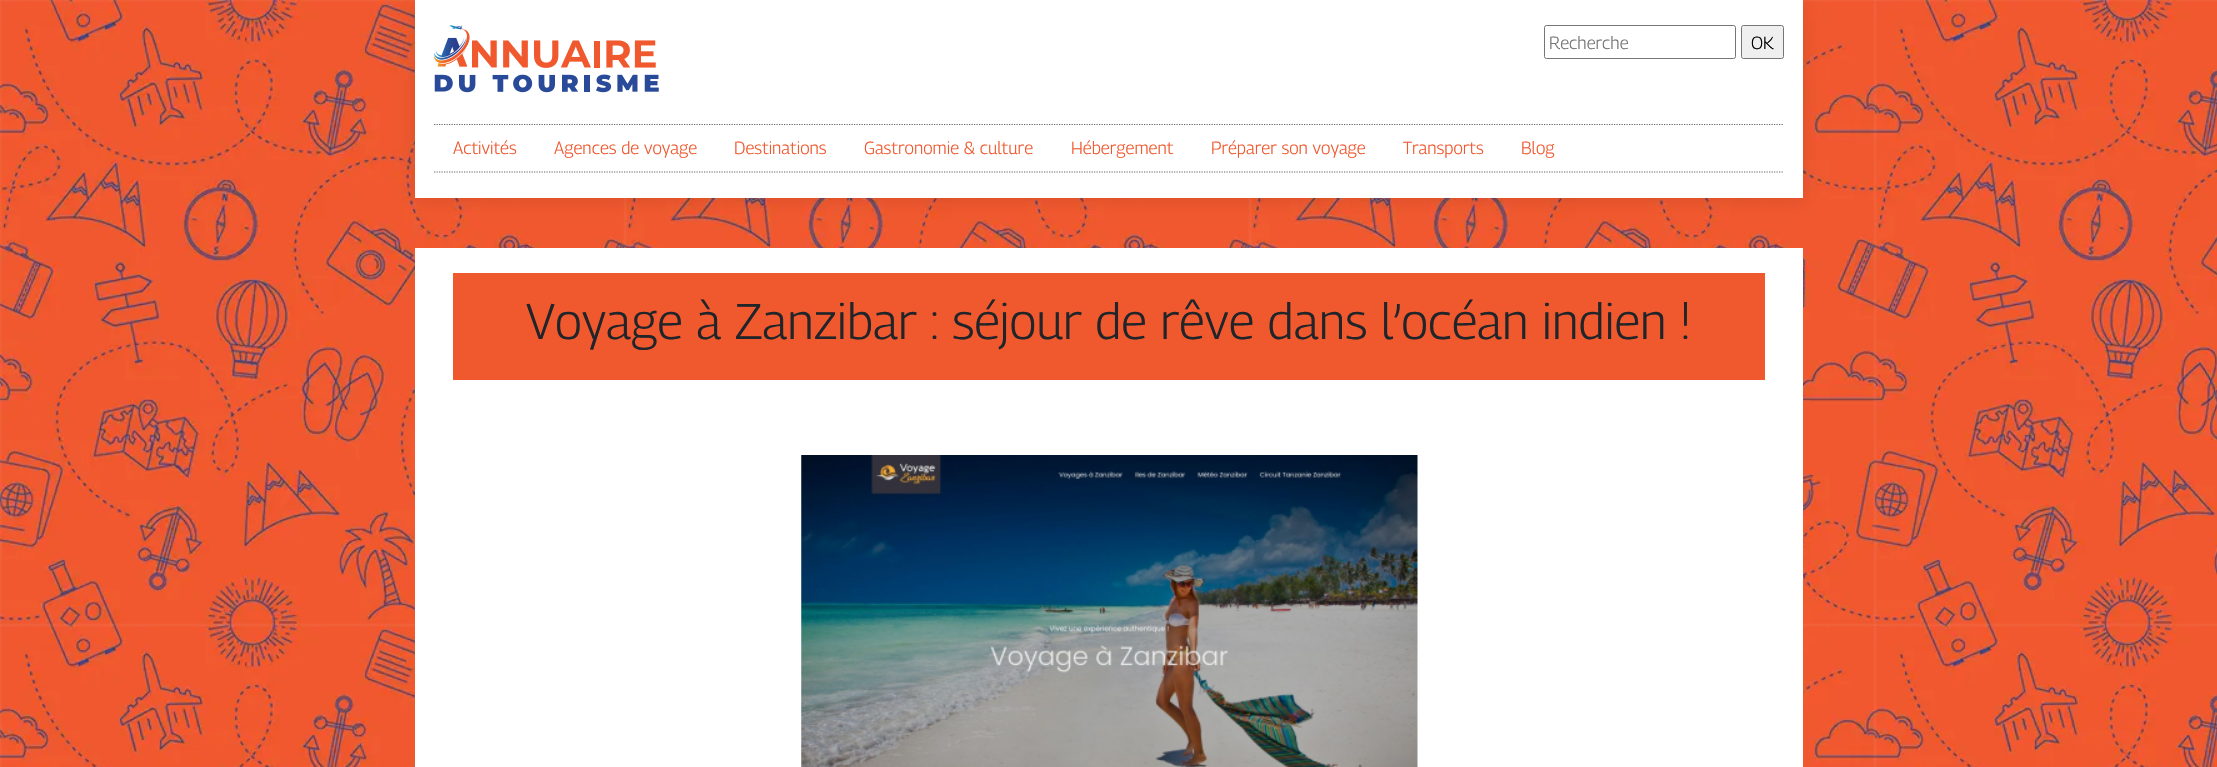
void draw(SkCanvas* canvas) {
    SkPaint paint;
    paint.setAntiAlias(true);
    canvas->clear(0xFFFFFFFF);
    canvas->drawImageRect(SkImages::DeferredFromEncodedData(SkData::MakeFromFileName("img1.png")), SkRect::MakeXYWH(0, 0, 2217, 767), SkSamplingOptions());
    paint.setColor(0x1A000000);
    paint.setMaskFilter(SkMaskFilter::MakeBlur(kNormal_SkBlurStyle, 8));
    canvas->drawRect(SkRect::MakeXYWH(415, 3, 1388, 197), paint);
    paint.setMaskFilter(nullptr);
    paint.setColor(0xFFFFFFFF);
    canvas->drawRect(SkRect::MakeXYWH(415, 0, 1388, 198), paint);
    canvas->drawImageRect(SkImages::DeferredFromEncodedData(SkData::MakeFromFileName("img2.png")), SkRect::MakeXYWH(434, 25, 225, 68), SkSamplingOptions());
    paint.setStyle(SkPaint::kStroke_Style);
    paint.setStrokeWidth(1);
    paint.setColor(0xFF767676);
    canvas->drawRoundRect(SkRect::MakeXYWH(1544.5f, 25.5f, 191, 33), 2, 2, paint);
    SkFont font1(fontMgr->matchFamilyStyle("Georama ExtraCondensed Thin", SkFontStyle(100, SkFontStyle::kNormal_Width, SkFontStyle::kUpright_Slant)), 17.5f);
    font1.setSubpixel(true);
    paint.setStyle(SkPaint::kFill_Style);
    paint.setColor(0xFF757575);
    canvas->drawString("Recherche", 1549, 49, font1, paint);
    paint.setColor(0xFFEFEFEF);
    canvas->drawRoundRect(SkRect::MakeXYWH(1741.5f, 25.5f, 42, 33), 2, 2, paint);
    paint.setStyle(SkPaint::kStroke_Style);
    paint.setColor(0xFF767676);
    canvas->drawRoundRect(SkRect::MakeXYWH(1741.5f, 25.5f, 42, 33), 2, 2, paint);
    paint.setStyle(SkPaint::kFill_Style);
    paint.setColor(0xFF000000);
    canvas->drawString("OK", 1751, 49, font1, paint);
    paint.setStyle(SkPaint::kStroke_Style);
    paint.setStrokeWidth(1.2f);
    paint.setColor(0xFF666666);
    paint.setPathEffect(SkDashPathEffect::Make({{1.25f, 1.25f}}, 0));
    canvas->drawPath(SkPathBuilder().moveTo(434, 124.5f).lineTo(1784, 124.5f).detach(), paint);
    paint.setPathEffect(nullptr);
    paint.setPathEffect(SkDashPathEffect::Make({{1.25f, 1.25f}}, 0));
    canvas->drawPath(SkPathBuilder().moveTo(434, 172).lineTo(1784, 172).detach(), paint);
    paint.setPathEffect(nullptr);
    paint.setStyle(SkPaint::kFill_Style);
    paint.setColor(0xFFF0582E);
    canvas->drawString("Activités", 453, 154, font1, paint);
    canvas->drawString("Agences de voyage", 554, 154, font1, paint);
    canvas->drawString("Destinations", 734, 154, font1, paint);
    canvas->drawString("Gastronomie & culture", 864, 154, font1, paint);
    canvas->drawString("Hébergement", 1071, 154, font1, paint);
    canvas->drawString("Préparer son voyage", 1211, 154, font1, paint);
    canvas->drawString("Transports", 1403, 154, font1, paint);
    canvas->drawString("Blog", 1521, 154, font1, paint);
    paint.setColor(0xFFFFFFFF);
    canvas->drawRect(SkRect::MakeXYWH(415, 248, 1388, 519), paint);
    paint.setColor(0xFFF0582E);
    canvas->drawRect(SkRect::MakeXYWH(453, 273, 1312, 107), paint);
    SkFont font2(fontMgr->matchFamilyStyle("Georama ExtraCondensed Thin", SkFontStyle(100, SkFontStyle::kNormal_Width, SkFontStyle::kUpright_Slant)), 50);
    font2.setSubpixel(true);
    paint.setColor(0xFF212529);
    canvas->drawString("Voyage à Zanzibar : séjour de rêve dans l’océan indien !", 526, 339, font2, paint);
    canvas->drawImageRect(SkImages::DeferredFromEncodedData(SkData::MakeFromFileName("img3.png")), SkRect::MakeXYWH(801, 455, 617, 312), SkSamplingOptions());
}
